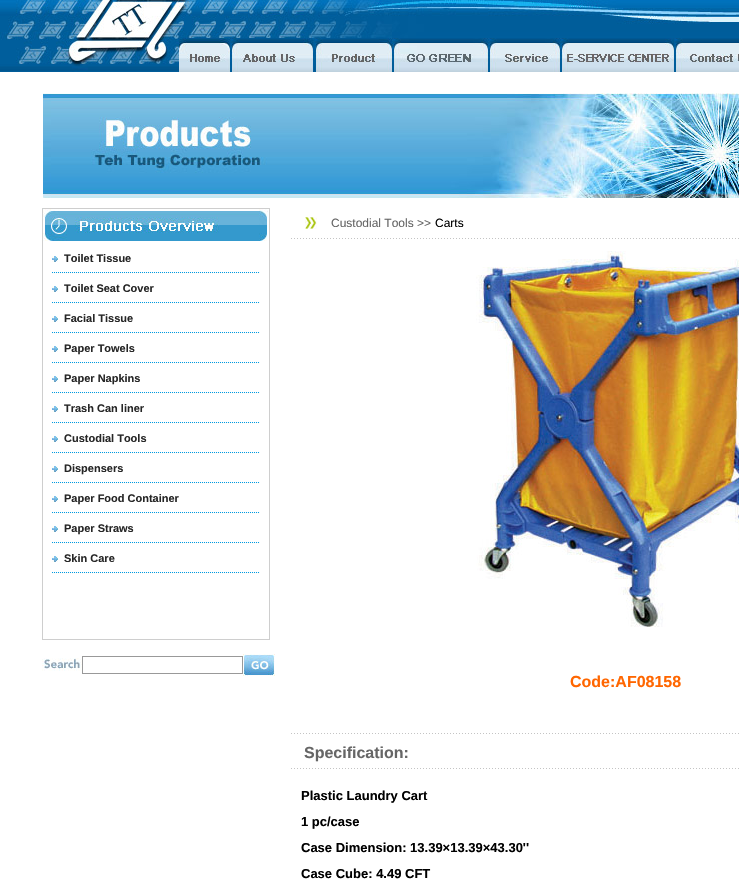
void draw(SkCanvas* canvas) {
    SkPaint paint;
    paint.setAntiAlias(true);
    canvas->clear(0xFFFFFFFF);
    canvas->drawImageRect(SkImages::DeferredFromEncodedData(SkData::MakeFromFileName("img1.png")), SkRect::MakeXYWH(0, 0, 739, 72), SkSamplingOptions());
    canvas->drawImageRect(SkImages::DeferredFromEncodedData(SkData::MakeFromFileName("img2.png")), SkRect::MakeXYWH(179, 38, 52, 34), SkSamplingOptions());
    canvas->drawImageRect(SkImages::DeferredFromEncodedData(SkData::MakeFromFileName("img3.png")), SkRect::MakeXYWH(231, 38, 83, 34), SkSamplingOptions());
    canvas->drawImageRect(SkImages::DeferredFromEncodedData(SkData::MakeFromFileName("img4.png")), SkRect::MakeXYWH(315, 38, 78, 34), SkSamplingOptions());
    canvas->drawImageRect(SkImages::DeferredFromEncodedData(SkData::MakeFromFileName("img5.png")), SkRect::MakeXYWH(393, 38, 96, 34), SkSamplingOptions());
    canvas->drawImageRect(SkImages::DeferredFromEncodedData(SkData::MakeFromFileName("img6.png")), SkRect::MakeXYWH(489, 38, 72, 34), SkSamplingOptions());
    canvas->drawImageRect(SkImages::DeferredFromEncodedData(SkData::MakeFromFileName("img7.png")), SkRect::MakeXYWH(561, 38, 114, 34), SkSamplingOptions());
    canvas->drawImageRect(SkImages::DeferredFromEncodedData(SkData::MakeFromFileName("img8.png")), SkRect::MakeXYWH(675, 38, 64, 34), SkSamplingOptions());
    canvas->drawImageRect(SkImages::DeferredFromEncodedData(SkData::MakeFromFileName("img9.png")), SkRect::MakeXYWH(43, 93, 696, 105), SkSamplingOptions());
    paint.setColor(0xFFCECECE);
    canvas->drawRect(SkRect::MakeXYWH(42, 208, 228, 432), paint);
    paint.setColor(0xFFFFFFFF);
    canvas->drawRect(SkRect::MakeXYWH(43, 209, 226, 430), paint);
    canvas->drawImageRect(SkImages::DeferredFromEncodedData(SkData::MakeFromFileName("img10.png")), SkRect::MakeXYWH(43, 209, 225, 32), SkSamplingOptions());
    canvas->drawImageRect(SkImages::DeferredFromEncodedData(SkData::MakeFromFileName("img11.png")), SkRect::MakeXYWH(52, 256, 6, 6), SkSamplingOptions());
    SkFont font1(fontMgr->matchFamilyStyle("Liberation Sans", SkFontStyle::Bold()), 11);
    font1.setSubpixel(true);
    paint.setColor(0xFF262626);
    canvas->drawString("Toilet Tissue", 64, 262, font1, paint);
    canvas->drawImageRect(SkImages::DeferredFromEncodedData(SkData::MakeFromFileName("img12.png")), SkRect::MakeXYWH(52, 272, 208, 2), SkSamplingOptions());
    canvas->drawImageRect(SkImages::DeferredFromEncodedData(SkData::MakeFromFileName("img11.png")), SkRect::MakeXYWH(52, 286, 6, 6), SkSamplingOptions());
    canvas->drawString("Toilet Seat Cover", 64, 292, font1, paint);
    canvas->drawImageRect(SkImages::DeferredFromEncodedData(SkData::MakeFromFileName("img12.png")), SkRect::MakeXYWH(52, 302, 208, 2), SkSamplingOptions());
    canvas->drawImageRect(SkImages::DeferredFromEncodedData(SkData::MakeFromFileName("img11.png")), SkRect::MakeXYWH(52, 316, 6, 6), SkSamplingOptions());
    canvas->drawString("Facial Tissue", 64, 322, font1, paint);
    canvas->drawImageRect(SkImages::DeferredFromEncodedData(SkData::MakeFromFileName("img12.png")), SkRect::MakeXYWH(52, 332, 208, 2), SkSamplingOptions());
    canvas->drawImageRect(SkImages::DeferredFromEncodedData(SkData::MakeFromFileName("img11.png")), SkRect::MakeXYWH(52, 346, 6, 6), SkSamplingOptions());
    canvas->drawString("Paper Towels", 64, 352, font1, paint);
    canvas->drawImageRect(SkImages::DeferredFromEncodedData(SkData::MakeFromFileName("img12.png")), SkRect::MakeXYWH(52, 362, 208, 2), SkSamplingOptions());
    canvas->drawImageRect(SkImages::DeferredFromEncodedData(SkData::MakeFromFileName("img11.png")), SkRect::MakeXYWH(52, 376, 6, 6), SkSamplingOptions());
    canvas->drawString("Paper Napkins", 64, 382, font1, paint);
    canvas->drawImageRect(SkImages::DeferredFromEncodedData(SkData::MakeFromFileName("img12.png")), SkRect::MakeXYWH(52, 392, 208, 2), SkSamplingOptions());
    canvas->drawImageRect(SkImages::DeferredFromEncodedData(SkData::MakeFromFileName("img11.png")), SkRect::MakeXYWH(52, 406, 6, 6), SkSamplingOptions());
    canvas->drawString("Trash Can liner", 64, 412, font1, paint);
    canvas->drawImageRect(SkImages::DeferredFromEncodedData(SkData::MakeFromFileName("img12.png")), SkRect::MakeXYWH(52, 422, 208, 2), SkSamplingOptions());
    canvas->drawImageRect(SkImages::DeferredFromEncodedData(SkData::MakeFromFileName("img11.png")), SkRect::MakeXYWH(52, 436, 6, 6), SkSamplingOptions());
    canvas->drawString("Custodial Tools", 64, 442, font1, paint);
    canvas->drawImageRect(SkImages::DeferredFromEncodedData(SkData::MakeFromFileName("img12.png")), SkRect::MakeXYWH(52, 452, 208, 2), SkSamplingOptions());
    canvas->drawImageRect(SkImages::DeferredFromEncodedData(SkData::MakeFromFileName("img11.png")), SkRect::MakeXYWH(52, 466, 6, 6), SkSamplingOptions());
    canvas->drawString("Dispensers", 64, 472, font1, paint);
    canvas->drawImageRect(SkImages::DeferredFromEncodedData(SkData::MakeFromFileName("img12.png")), SkRect::MakeXYWH(52, 482, 208, 2), SkSamplingOptions());
    canvas->drawImageRect(SkImages::DeferredFromEncodedData(SkData::MakeFromFileName("img11.png")), SkRect::MakeXYWH(52, 496, 6, 6), SkSamplingOptions());
    canvas->drawString("Paper Food Container", 64, 502, font1, paint);
    canvas->drawImageRect(SkImages::DeferredFromEncodedData(SkData::MakeFromFileName("img12.png")), SkRect::MakeXYWH(52, 512, 208, 2), SkSamplingOptions());
    canvas->drawImageRect(SkImages::DeferredFromEncodedData(SkData::MakeFromFileName("img11.png")), SkRect::MakeXYWH(52, 526, 6, 6), SkSamplingOptions());
    canvas->drawString("Paper Straws", 64, 532, font1, paint);
    canvas->drawImageRect(SkImages::DeferredFromEncodedData(SkData::MakeFromFileName("img12.png")), SkRect::MakeXYWH(52, 542, 208, 2), SkSamplingOptions());
    canvas->drawImageRect(SkImages::DeferredFromEncodedData(SkData::MakeFromFileName("img11.png")), SkRect::MakeXYWH(52, 556, 6, 6), SkSamplingOptions());
    canvas->drawString("Skin Care", 64, 562, font1, paint);
    canvas->drawImageRect(SkImages::DeferredFromEncodedData(SkData::MakeFromFileName("img12.png")), SkRect::MakeXYWH(52, 572, 208, 2), SkSamplingOptions());
    canvas->drawImageRect(SkImages::DeferredFromEncodedData(SkData::MakeFromFileName("img13.png")), SkRect::MakeXYWH(42, 658, 40, 13), SkSamplingOptions());
    paint.setStyle(SkPaint::kStroke_Style);
    paint.setStrokeWidth(1);
    paint.setColor(0xFF999999);
    canvas->drawRect(SkRect::MakeXYWH(82.5f, 656.5f, 160, 17), paint);
    canvas->drawImageRect(SkImages::DeferredFromEncodedData(SkData::MakeFromFileName("img14.png")), SkRect::MakeXYWH(243, 654, 32, 22), SkSamplingOptions());
    canvas->drawImageRect(SkImages::DeferredFromEncodedData(SkData::MakeFromFileName("img15.png")), SkRect::MakeXYWH(305, 217, 12, 12), SkSamplingOptions());
    SkFont font2(fontMgr->matchFamilyStyle("Liberation Sans", SkFontStyle::Normal()), 12);
    font2.setSubpixel(true);
    paint.setStyle(SkPaint::kFill_Style);
    paint.setColor(0xFF666666);
    canvas->drawString("Custodial Tools >>", 331, 227, font2, paint);
    paint.setColor(0xFF000000);
    canvas->drawString("Carts", 435, 227, font2, paint);
    canvas->drawImageRect(SkImages::DeferredFromEncodedData(SkData::MakeFromFileName("img16.png")), SkRect::MakeXYWH(291, 238, 448, 1), SkSamplingOptions());
    canvas->drawImageRect(SkImages::DeferredFromEncodedData(SkData::MakeFromFileName("img17.png")), SkRect::MakeXYWH(476, 251, 263, 376), SkSamplingOptions());
    SkFont font3(fontMgr->matchFamilyStyle("Liberation Sans", SkFontStyle::Bold()), 16);
    font3.setSubpixel(true);
    paint.setColor(0xFFFF6600);
    canvas->drawString("Code:AF08158", 570, 687, font3, paint);
    canvas->drawImageRect(SkImages::DeferredFromEncodedData(SkData::MakeFromFileName("img16.png")), SkRect::MakeXYWH(291, 733, 448, 1), SkSamplingOptions());
    paint.setColor(0xFF666666);
    canvas->drawString("Specification:", 304, 758, font3, paint);
    canvas->drawImageRect(SkImages::DeferredFromEncodedData(SkData::MakeFromFileName("img16.png")), SkRect::MakeXYWH(291, 768, 448, 1), SkSamplingOptions());
    SkFont font4(fontMgr->matchFamilyStyle("Liberation Sans", SkFontStyle::Bold()), 13);
    font4.setSubpixel(true);
    paint.setColor(0xFF000000);
    canvas->drawString("Plastic Laundry Cart", 301, 800, font4, paint);
    canvas->drawString("1 pc/case", 301, 826, font4, paint);
    canvas->drawString("Case Dimension: 13.39×13.39×43.30''", 301, 852, font4, paint);
    canvas->drawString("Case Cube: 4.49 CFT", 301, 878, font4, paint);
}
